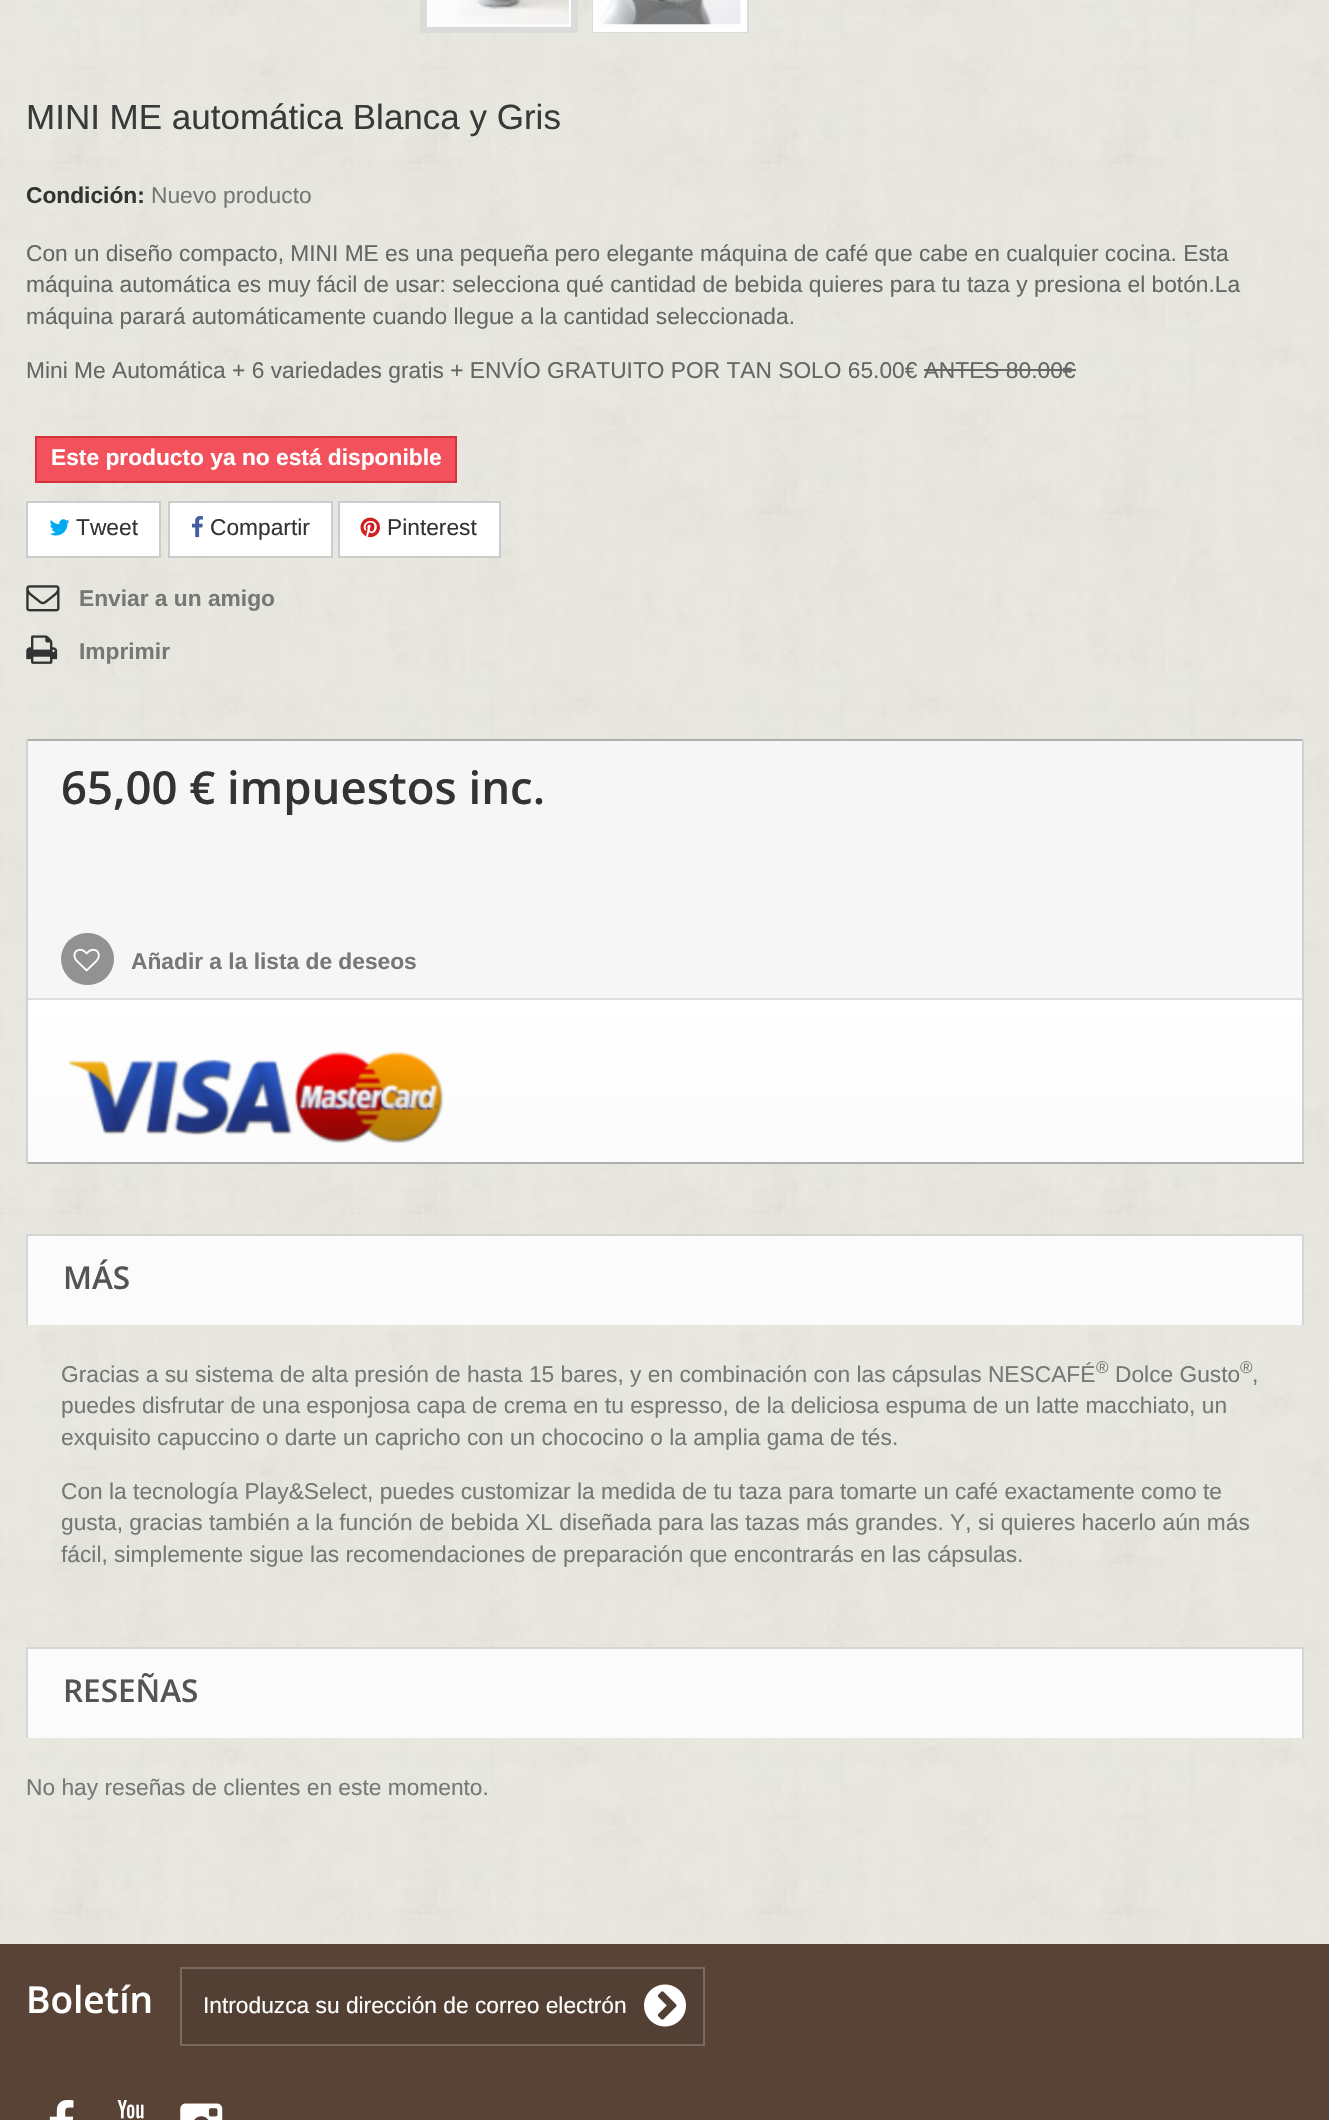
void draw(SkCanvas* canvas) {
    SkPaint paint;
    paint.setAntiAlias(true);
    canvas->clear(0xFFFFFFFF);
    canvas->drawImageRect(SkImages::DeferredFromEncodedData(SkData::MakeFromFileName("img1.png")), SkRect::MakeXYWH(0, 0, 1329, 1944), SkSamplingOptions());
    paint.setStyle(SkPaint::kStroke_Style);
    paint.setStrokeWidth(2);
    paint.setColor(0xFFDBDBDB);
    canvas->drawRect(SkRect::MakeXYWH(421, -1, 156, 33), paint);
    paint.setStyle(SkPaint::kFill_Style);
    paint.setColor(0xFFFBFBFB);
    canvas->drawRect(SkRect::MakeXYWH(424.5f, -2.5f, 149, 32), paint);
    paint.setStyle(SkPaint::kStroke_Style);
    paint.setStrokeWidth(5);
    paint.setColor(0xFFDBDBDB);
    canvas->drawRect(SkRect::MakeXYWH(424.5f, -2.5f, 149, 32), paint);
    paint.setStrokeWidth(2);
    paint.setColor(0xFFFFFFFF);
    canvas->drawRect(SkRect::MakeXYWH(428, -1, 142, 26), paint);
    canvas->drawImageRect(SkImages::DeferredFromEncodedData(SkData::MakeFromFileName("img2.png")), SkRect::MakeXYWH(457, 0, 112, 25), SkSamplingOptions());
    paint.setColor(0xFFDBDBDB);
    canvas->drawRect(SkRect::MakeXYWH(593, -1, 155, 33), paint);
    paint.setStyle(SkPaint::kFill_Style);
    paint.setColor(0xFFFBFBFB);
    canvas->drawRect(SkRect::MakeXYWH(595.5f, -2.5f, 149, 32), paint);
    paint.setStyle(SkPaint::kStroke_Style);
    paint.setStrokeWidth(5);
    paint.setColor(0xFFFFFFFF);
    canvas->drawRect(SkRect::MakeXYWH(595.5f, -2.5f, 149, 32), paint);
    paint.setStrokeWidth(2);
    canvas->drawRect(SkRect::MakeXYWH(600, -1, 141, 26), paint);
    canvas->drawImageRect(SkImages::DeferredFromEncodedData(SkData::MakeFromFileName("img3.png")), SkRect::MakeXYWH(600, 0, 141, 25), SkSamplingOptions());
    SkFont font1(fontMgr->matchFamilyStyle("Liberation Sans", SkFontStyle::Normal()), 35);
    font1.setSubpixel(true);
    paint.setStyle(SkPaint::kFill_Style);
    paint.setColor(0xFF3A3939);
    canvas->drawString("MINI ME automática Blanca y Gris", 26, 129, font1, paint);
    SkFont font2(fontMgr->matchFamilyStyle("Liberation Sans", SkFontStyle::Bold()), 22.75f);
    font2.setSubpixel(true);
    paint.setColor(0xFF333333);
    canvas->drawString("Condición:", 26, 203, font2, paint);
    SkFont font3(fontMgr->matchFamilyStyle("Liberation Sans", SkFontStyle::Normal()), 22.75f);
    font3.setSubpixel(true);
    paint.setColor(0xFF777777);
    canvas->drawString("Nuevo producto", 151, 203, font3, paint);
    paint.setColor(0xFF666666);
    canvas->drawString("Con un diseño compacto, MINI ME es una pequeña pero elegante máquina de café que cabe en cualquier cocina. Esta", 26, 261, font3, paint);
    canvas->drawString("máquina automática es muy fácil de usar: selecciona qué cantidad de bebida quieres para tu taza y presiona el botón.La", 26, 292, font3, paint);
    canvas->drawString("máquina parará automáticamente cuando llegue a la cantidad seleccionada.", 26, 324, font3, paint);
    canvas->drawString("Mini Me Automática + 6 variedades gratis + ENVÍO GRATUITO POR TAN SOLO 65.00€ ANTES 80.00€", 26, 378, font3, paint);
    canvas->drawRect(SkRect::MakeXYWH(924, 369, 152, 2), paint);
    paint.setColor(0xFFF3515C);
    canvas->drawRect(SkRect::MakeXYWH(36, 437, 420, 45), paint);
    paint.setStyle(SkPaint::kStroke_Style);
    paint.setColor(0xFFD4323D);
    canvas->drawRect(SkRect::MakeXYWH(36, 437, 420, 45), paint);
    paint.setStyle(SkPaint::kFill_Style);
    paint.setColor(0xFFFFFFFF);
    canvas->drawString("Este producto ya no está disponible", 51, 465, font2, paint);
    canvas->drawRect(SkRect::MakeXYWH(27, 502, 133, 55), paint);
    paint.setStyle(SkPaint::kStroke_Style);
    paint.setColor(0xFFCCCCCC);
    canvas->drawRect(SkRect::MakeXYWH(27, 502, 133, 55), paint);
    canvas->drawImageRect(SkImages::DeferredFromEncodedData(SkData::MakeFromFileName("img4.png")), SkRect::MakeXYWH(49, 519, 21, 17), SkSamplingOptions());
    paint.setStyle(SkPaint::kFill_Style);
    paint.setColor(0xFF333333);
    canvas->drawString("Tweet", 76, 535, font3, paint);
    paint.setColor(0xFFFFFFFF);
    canvas->drawRect(SkRect::MakeXYWH(169, 502, 163, 55), paint);
    paint.setStyle(SkPaint::kStroke_Style);
    paint.setColor(0xFFCCCCCC);
    canvas->drawRect(SkRect::MakeXYWH(169, 502, 163, 55), paint);
    canvas->drawImageRect(SkImages::DeferredFromEncodedData(SkData::MakeFromFileName("img5.png")), SkRect::MakeXYWH(191, 516, 12, 22), SkSamplingOptions());
    paint.setStyle(SkPaint::kFill_Style);
    paint.setColor(0xFF333333);
    canvas->drawString("Compartir", 210, 535, font3, paint);
    paint.setColor(0xFFFFFFFF);
    canvas->drawRect(SkRect::MakeXYWH(339, 502, 161, 55), paint);
    paint.setStyle(SkPaint::kStroke_Style);
    paint.setColor(0xFFCCCCCC);
    canvas->drawRect(SkRect::MakeXYWH(339, 502, 161, 55), paint);
    canvas->drawImageRect(SkImages::DeferredFromEncodedData(SkData::MakeFromFileName("img6.png")), SkRect::MakeXYWH(360, 517, 20, 21), SkSamplingOptions());
    paint.setStyle(SkPaint::kFill_Style);
    paint.setColor(0xFF333333);
    canvas->drawString("Pinterest", 387, 535, font3, paint);
    canvas->drawImageRect(SkImages::DeferredFromEncodedData(SkData::MakeFromFileName("img7.png")), SkRect::MakeXYWH(26, 585, 34, 27), SkSamplingOptions());
    paint.setColor(0xFF777777);
    canvas->drawString("Enviar a un amigo", 79, 606, font2, paint);
    canvas->drawImageRect(SkImages::DeferredFromEncodedData(SkData::MakeFromFileName("img8.png")), SkRect::MakeXYWH(26, 635, 32, 29), SkSamplingOptions());
    canvas->drawString("Imprimir", 79, 659, font2, paint);
    paint.setColor(0xFFF6F6F6);
    canvas->drawRect(SkRect::MakeXYWH(28, 741, 1274, 257), paint);
    paint.setColor(0xFFB0AFAF);
    canvas->drawRect(SkRect::MakeXYWH(26, 739, 1278, 2), paint);
    paint.setColor(0xFFD2D0D0);
    canvas->drawRect(SkRect::MakeXYWH(1302, 739, 2, 425), paint);
    paint.setColor(0xFFB0AFAF);
    canvas->drawRect(SkRect::MakeXYWH(26, 1162, 1278, 2), paint);
    paint.setColor(0xFFD2D0D0);
    canvas->drawRect(SkRect::MakeXYWH(26, 739, 2, 425), paint);
    SkFont font4(fontMgr->matchFamilyStyle("Open Sans", SkFontStyle(600, SkFontStyle::kNormal_Width, SkFontStyle::kUpright_Slant)), 45.5f);
    font4.setSubpixel(true);
    paint.setColor(0xFF333333);
    canvas->drawString("65,00 € impuestos inc.", 61, 804, font4, paint);
    paint.setColor(0xFF929292);
    canvas->drawRoundRect(SkRect::MakeXYWH(61, 933, 53, 52), 26, 26, paint);
    canvas->drawImageRect(SkImages::DeferredFromEncodedData(SkData::MakeFromFileName("img9.png")), SkRect::MakeXYWH(73, 948, 27, 24), SkSamplingOptions());
    paint.setColor(0xFF777777);
    canvas->drawString("Añadir a la lista de deseos", 131, 969, font2, paint);
    {
        const SkColor colors[] = {0xFFFFFFFF, 0xFFFBFBFB};
        const float stops[] = {0, 1};
        const SkPoint ends[] = {{665, 999}, {665, 1162}};
        paint.setShader(SkGradientShader::MakeLinear(ends, colors, stops, 2, SkTileMode::kClamp));
        paint.setAlpha(255);
    }
    canvas->drawRect(SkRect::MakeXYWH(28, 1000, 1274, 162), paint);
    paint.setShader(nullptr);
    paint.setColor(0xFFDFDEDE);
    canvas->drawRect(SkRect::MakeXYWH(28, 998, 1274, 2), paint);
    canvas->drawImageRect(SkImages::DeferredFromEncodedData(SkData::MakeFromFileName("img10.png")), SkRect::MakeXYWH(68, 1051, 376, 92), SkSamplingOptions());
    paint.setColor(0xFFFBFBFB);
    canvas->drawRect(SkRect::MakeXYWH(28, 1236, 1274, 89), paint);
    paint.setColor(0xFFD6D4D4);
    canvas->drawRect(SkRect::MakeXYWH(26, 1234, 1278, 2), paint);
    canvas->drawRect(SkRect::MakeXYWH(1302, 1234, 2, 91), paint);
    canvas->drawRect(SkRect::MakeXYWH(26, 1234, 2, 91), paint);
    SkFont font5(fontMgr->matchFamilyStyle("Open Sans", SkFontStyle(600, SkFontStyle::kNormal_Width, SkFontStyle::kUpright_Slant)), 31.5f);
    font5.setSubpixel(true);
    paint.setColor(0xFF555454);
    canvas->drawString("MÁS", 63, 1289, font5, paint);
    paint.setColor(0xFF777777);
    canvas->drawString("Gracias a su sistema de alta presión de hasta 15 bares, y en combinación con las cápsulas NESCAFÉ", 61, 1382, font3, paint);
    SkFont font6(fontMgr->matchFamilyStyle("Liberation Sans", SkFontStyle::Normal()), 17);
    font6.setSubpixel(true);
    canvas->drawString("®", 1096, 1373, font6, paint);
    canvas->drawString("Dolce Gusto", 1115, 1382, font3, paint);
    canvas->drawString("®", 1240, 1373, font6, paint);
    canvas->drawString(",", 1252, 1382, font3, paint);
    canvas->drawString("puedes disfrutar de una esponjosa capa de crema en tu espresso, de la deliciosa espuma de un latte macchiato, un", 61, 1413, font3, paint);
    canvas->drawString("exquisito capuccino o darte un capricho con un chococino o la amplia gama de tés.", 61, 1445, font3, paint);
    canvas->drawString("Con la tecnología Play&Select, puedes customizar la medida de tu taza para tomarte un café exactamente como te", 61, 1499, font3, paint);
    canvas->drawString("gusta, gracias también a la función de bebida XL diseñada para las tazas más grandes. Y, si quieres hacerlo aún más", 61, 1530, font3, paint);
    canvas->drawString("fácil, simplemente sigue las recomendaciones de preparación que encontrarás en las cápsulas.", 61, 1562, font3, paint);
    paint.setColor(0xFFFBFBFB);
    canvas->drawRect(SkRect::MakeXYWH(28, 1649, 1274, 89), paint);
    paint.setColor(0xFFD6D4D4);
    canvas->drawRect(SkRect::MakeXYWH(26, 1647, 1278, 2), paint);
    canvas->drawRect(SkRect::MakeXYWH(1302, 1647, 2, 91), paint);
    canvas->drawRect(SkRect::MakeXYWH(26, 1647, 2, 91), paint);
    paint.setColor(0xFF555454);
    canvas->drawString("RESEÑAS", 63, 1702, font5, paint);
    paint.setColor(0xFF777777);
    canvas->drawString("No hay reseñas de clientes en este momento.", 26, 1795, font3, paint);
    paint.setColor(0xFF584336);
    canvas->drawRect(SkRect::MakeXYWH(0, 1944, 1329, 176), paint);
    SkFont font7(fontMgr->matchFamilyStyle("Open Sans", SkFontStyle(600, SkFontStyle::kNormal_Width, SkFontStyle::kUpright_Slant)), 37);
    font7.setSubpixel(true);
    paint.setColor(0xFFFFFFFF);
    canvas->drawString("Boletín", 26, 2013, font7, paint);
    paint.setColor(0xFF534034);
    canvas->drawRect(SkRect::MakeXYWH(181, 1968, 523, 77), paint);
    paint.setStyle(SkPaint::kStroke_Style);
    paint.setColor(0xFF79695E);
    canvas->drawRect(SkRect::MakeXYWH(181, 1968, 523, 77), paint);
    paint.setStyle(SkPaint::kFill_Style);
    paint.setColor(0xFFFFFFFF);
    canvas->drawString("Introduzca su dirección de correo electrón", 203, 2013, font3, paint);
    canvas->drawImageRect(SkImages::DeferredFromEncodedData(SkData::MakeFromFileName("img11.png")), SkRect::MakeXYWH(644, 1984, 42, 43), SkSamplingOptions());
    canvas->drawImageRect(SkImages::DeferredFromEncodedData(SkData::MakeFromFileName("img12.png")), SkRect::MakeXYWH(49, 2100, 25, 20), SkSamplingOptions());
    canvas->drawImageRect(SkImages::DeferredFromEncodedData(SkData::MakeFromFileName("img13.png")), SkRect::MakeXYWH(117, 2100, 27, 19), SkSamplingOptions());
    canvas->drawImageRect(SkImages::DeferredFromEncodedData(SkData::MakeFromFileName("img14.png")), SkRect::MakeXYWH(180, 2103, 43, 17), SkSamplingOptions());
}
